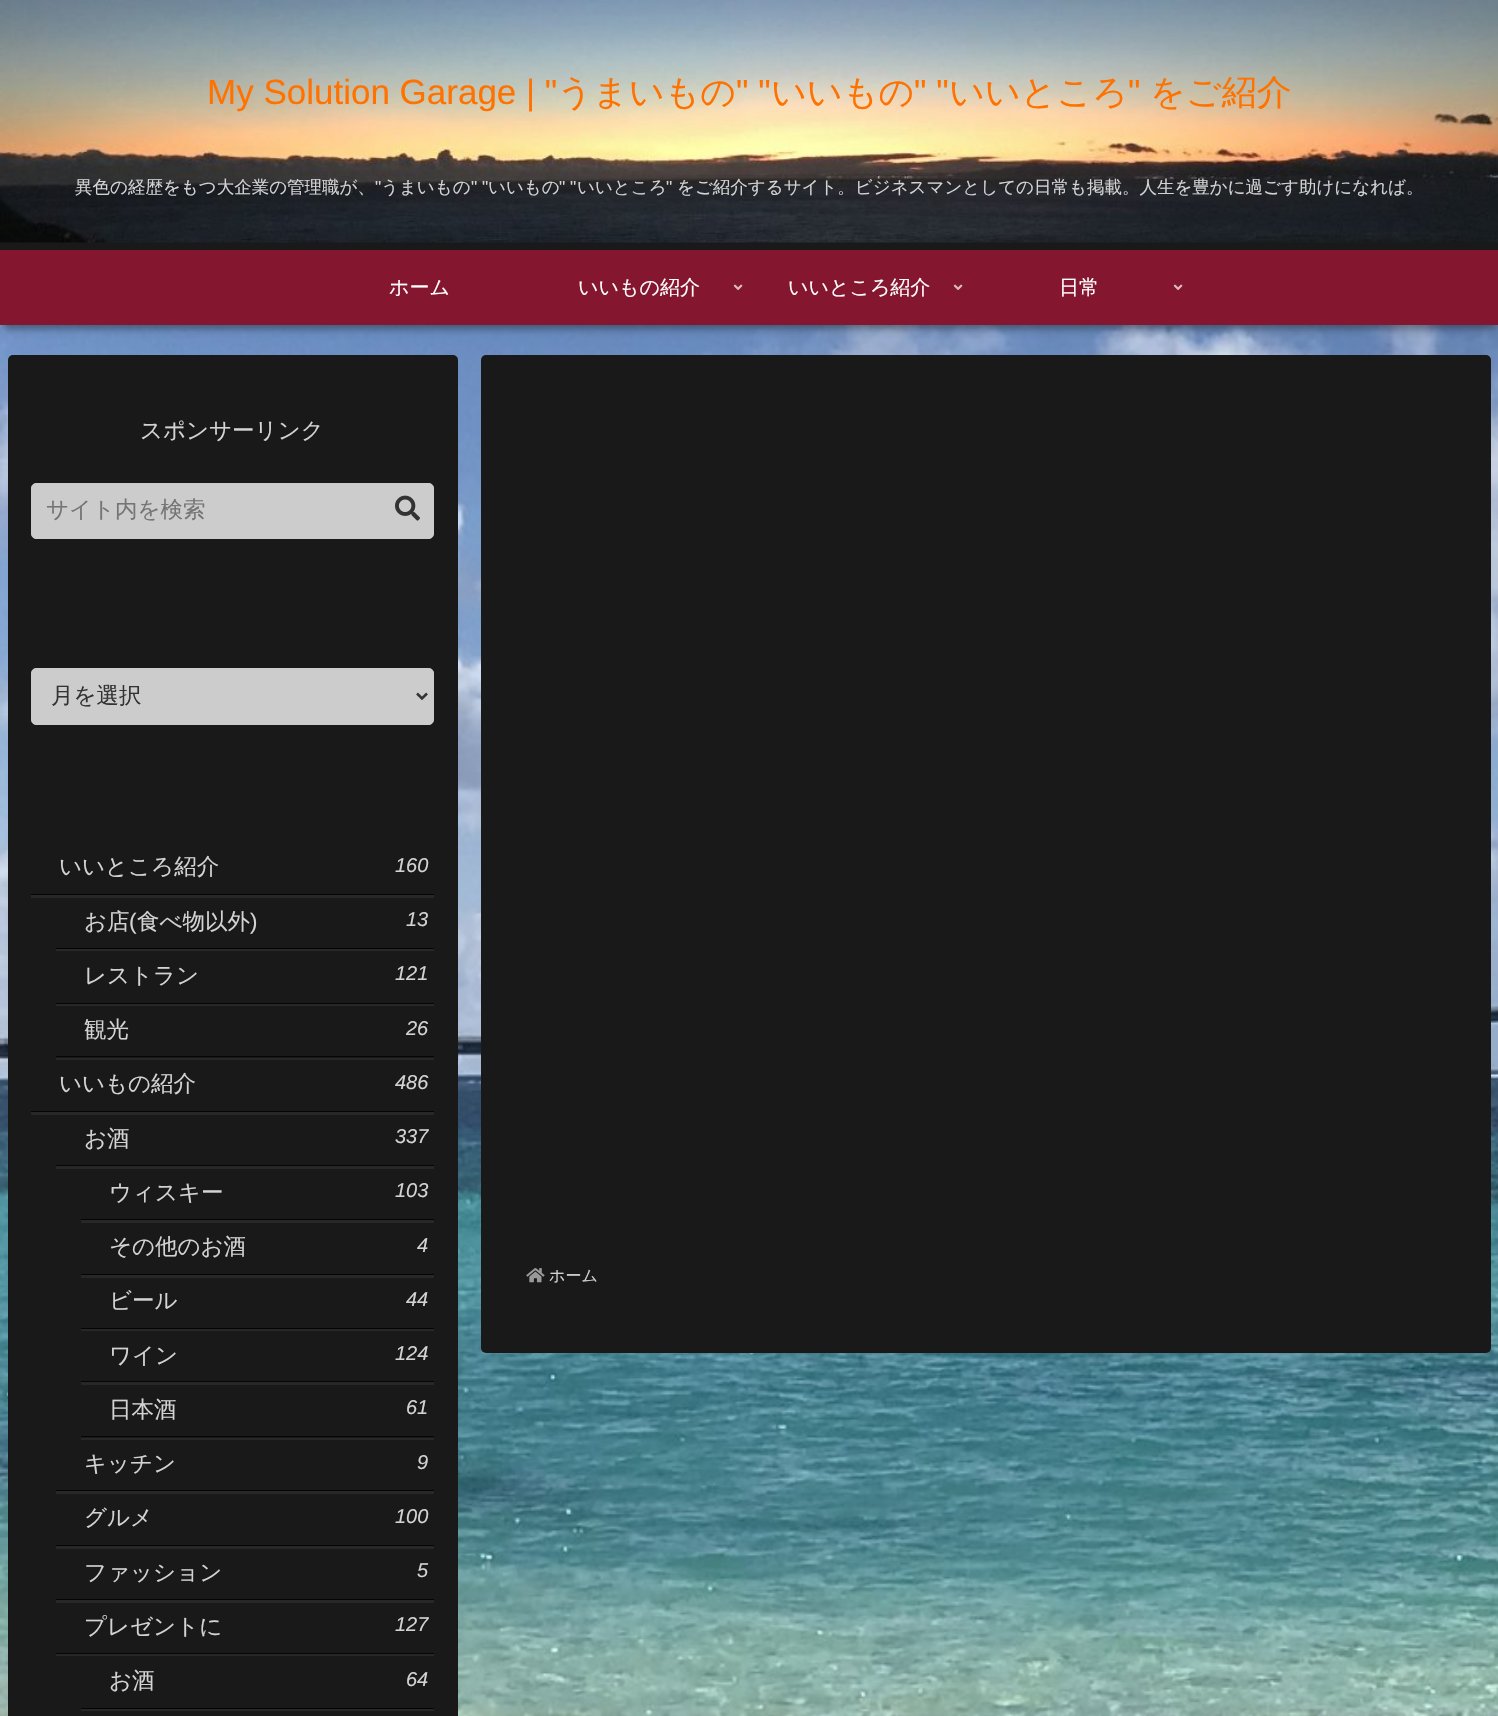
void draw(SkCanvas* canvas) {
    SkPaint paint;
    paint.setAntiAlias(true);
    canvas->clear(0xFFFFFFFF);
    canvas->drawImageRect(SkImages::DeferredFromEncodedData(SkData::MakeFromFileName("img1.png")), SkRect::MakeXYWH(0, 325, 1498, 1391), SkSamplingOptions());
    paint.setColor(0x2E000000);
    paint.setMaskFilter(SkMaskFilter::MakeBlur(kNormal_SkBlurStyle, 6));
    canvas->drawRect(SkRect::MakeXYWH(4, 11, 1491, 318), paint);
    paint.setMaskFilter(nullptr);
    paint.setColor(0x3D000000);
    paint.setMaskFilter(SkMaskFilter::MakeBlur(kNormal_SkBlurStyle, 3));
    canvas->drawRect(SkRect::MakeXYWH(4, 11, 1491, 318), paint);
    paint.setMaskFilter(nullptr);
    paint.setColor(0xFF191919);
    canvas->drawRect(SkRect::MakeXYWH(0, 242, 1498, 8), paint);
    canvas->drawImageRect(SkImages::DeferredFromEncodedData(SkData::MakeFromFileName("img2.png")), SkRect::MakeXYWH(0, 0, 1498, 243), SkSamplingOptions());
    SkFont font1(fontMgr->matchFamilyStyle("Liberation Sans", SkFontStyle::Normal()), 35);
    font1.setSubpixel(true);
    paint.setColor(0xFFFF7200);
    canvas->drawString("My Solution Garage | \"", 207, 104, font1, paint);
    SkFont font2(fontMgr->matchFamilyStyle("WenQuanYi Zen Hei", SkFontStyle(500, SkFontStyle::kNormal_Width, SkFontStyle::kUpright_Slant)), 35);
    font2.setSubpixel(true);
    canvas->drawString("うまいもの", 557, 104, font2, paint);
    canvas->drawString("\" \"", 736, 104, font1, paint);
    canvas->drawString("いいもの", 771, 104, font2, paint);
    canvas->drawString("\" \"", 914, 104, font1, paint);
    canvas->drawString("いいところ", 949, 104, font2, paint);
    canvas->drawString("\"", 1128, 104, font1, paint);
    canvas->drawString("をご紹介", 1150, 104, font2, paint);
    SkFont font3(fontMgr->matchFamilyStyle("WenQuanYi Zen Hei", SkFontStyle(500, SkFontStyle::kNormal_Width, SkFontStyle::kUpright_Slant)), 17.5f);
    font3.setSubpixel(true);
    paint.setColor(0xFFD3D3D3);
    canvas->drawString("異色の経歴をもつ大企業の管理職が、", 75, 193, font3, paint);
    SkFont font4(fontMgr->matchFamilyStyle("Liberation Sans", SkFontStyle::Normal()), 17.5f);
    font4.setSubpixel(true);
    canvas->drawString("\"", 375, 193, font4, paint);
    canvas->drawString("うまいもの", 381, 193, font3, paint);
    canvas->drawString("\" \"", 471, 193, font4, paint);
    canvas->drawString("いいもの", 488, 193, font3, paint);
    canvas->drawString("\" \"", 559, 193, font4, paint);
    canvas->drawString("いいところ", 577, 193, font3, paint);
    canvas->drawString("\"", 666, 193, font4, paint);
    canvas->drawString("をご紹介するサイト。ビジネスマンとしての日常も掲載。人生を豊かに過ごす助けになれば。", 677, 193, font3, paint);
    paint.setColor(0xFF84172F);
    canvas->drawRect(SkRect::MakeXYWH(0, 250, 1498, 75), paint);
    SkFont font5(fontMgr->matchFamilyStyle("WenQuanYi Zen Hei", SkFontStyle(500, SkFontStyle::kNormal_Width, SkFontStyle::kUpright_Slant)), 20);
    font5.setSubpixel(true);
    paint.setColor(0xFFFFFFFF);
    canvas->drawString("ホーム", 389, 294, font5, paint);
    canvas->drawString("いいもの紹介", 578, 294, font5, paint);
    canvas->drawImageRect(SkImages::DeferredFromEncodedData(SkData::MakeFromFileName("img3.png")), SkRect::MakeXYWH(733, 284, 10, 6), SkSamplingOptions());
    canvas->drawString("いいところ紹介", 788, 294, font5, paint);
    canvas->drawImageRect(SkImages::DeferredFromEncodedData(SkData::MakeFromFileName("img3.png")), SkRect::MakeXYWH(953, 284, 10, 6), SkSamplingOptions());
    canvas->drawString("日常", 1059, 294, font5, paint);
    canvas->drawImageRect(SkImages::DeferredFromEncodedData(SkData::MakeFromFileName("img3.png")), SkRect::MakeXYWH(1173, 284, 10, 6), SkSamplingOptions());
    paint.setColor(0xFF191919);
    canvas->drawRoundRect(SkRect::MakeXYWH(8, 355, 450, 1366), 5, 5, paint);
    SkFont font6(fontMgr->matchFamilyStyle("WenQuanYi Zen Hei", SkFontStyle(500, SkFontStyle::kNormal_Width, SkFontStyle::kUpright_Slant)), 22.5f);
    font6.setSubpixel(true);
    paint.setColor(0xFFD3D3D3);
    canvas->drawString("スポンサーリンク", 140, 438, font6, paint);
    paint.setColor(0xFFCCCCCC);
    canvas->drawRoundRect(SkRect::MakeXYWH(31.5f, 483.5f, 402, 55), 4.5f, 4.5f, paint);
    paint.setStyle(SkPaint::kStroke_Style);
    paint.setStrokeWidth(1);
    canvas->drawRoundRect(SkRect::MakeXYWH(31.5f, 483.5f, 402, 55), 4.5f, 4.5f, paint);
    paint.setStyle(SkPaint::kFill_Style);
    paint.setColor(0xFF757575);
    canvas->drawString("サイト内を検索", 46, 517, font6, paint);
    canvas->drawImageRect(SkImages::DeferredFromEncodedData(SkData::MakeFromFileName("img4.png")), SkRect::MakeXYWH(395, 495, 25, 26), SkSamplingOptions());
    paint.setColor(0xFFCCCCCC);
    canvas->drawRoundRect(SkRect::MakeXYWH(31.5f, 668.5f, 402, 56), 4.5f, 4.5f, paint);
    paint.setStyle(SkPaint::kStroke_Style);
    canvas->drawRoundRect(SkRect::MakeXYWH(31.5f, 668.5f, 402, 56), 4.5f, 4.5f, paint);
    paint.setStrokeWidth(2.5f);
    paint.setColor(0xFF333333);
    canvas->drawPath(SkPathBuilder().moveTo(417, 693.5f).lineTo(422, 698.5f).lineTo(427, 693.5f).detach(), paint);
    paint.setStyle(SkPaint::kFill_Style);
    canvas->drawString("月を選択", 51, 703, font6, paint);
    paint.setColor(0xFF282727);
    canvas->drawPath(SkPathBuilder().moveTo(31, 844).lineTo(31, 898).lineTo(434, 898).lineTo(434, 844).lineTo(434, 895).lineTo(31, 895).close().detach(), paint);
    paint.setColor(0xFF050505);
    canvas->drawRect(SkRect::MakeXYWH(31, 894, 403, 1), paint);
    paint.setColor(0xFFD3D3D3);
    canvas->drawString("いいところ紹介", 59, 874, font6, paint);
    SkFont font7(fontMgr->matchFamilyStyle("Liberation Sans", SkFontStyle::Italic()), 20);
    font7.setSubpixel(true);
    canvas->drawString("160", 395, 872, font7, paint);
    paint.setColor(0xFF282727);
    canvas->drawPath(SkPathBuilder().moveTo(56, 898).lineTo(56, 951).lineTo(434, 951).lineTo(434, 898).lineTo(434, 949).lineTo(56, 949).close().detach(), paint);
    paint.setColor(0xFF050505);
    canvas->drawRect(SkRect::MakeXYWH(56, 948, 378, 1), paint);
    paint.setColor(0xFFD3D3D3);
    canvas->drawString("お店", 84, 929, font6, paint);
    SkFont font8(fontMgr->matchFamilyStyle("Liberation Sans", SkFontStyle::Normal()), 22.5f);
    font8.setSubpixel(true);
    canvas->drawString("(", 129, 929, font8, paint);
    canvas->drawString("食べ物以外", 137, 929, font6, paint);
    canvas->drawString(")", 250, 929, font8, paint);
    canvas->drawString("13", 406, 926, font7, paint);
    paint.setColor(0xFF282727);
    canvas->drawPath(SkPathBuilder().moveTo(56, 951).lineTo(56, 1006).lineTo(434, 1006).lineTo(434, 951).lineTo(434, 1004).lineTo(56, 1004).close().detach(), paint);
    paint.setColor(0xFF050505);
    canvas->drawRect(SkRect::MakeXYWH(56, 1003, 378, 1), paint);
    paint.setColor(0xFFD3D3D3);
    canvas->drawString("レストラン", 84, 983, font6, paint);
    canvas->drawString("121", 395, 980, font7, paint);
    paint.setColor(0xFF282727);
    canvas->drawPath(SkPathBuilder().moveTo(56, 1006).lineTo(56, 1060).lineTo(434, 1060).lineTo(434, 1006).lineTo(434, 1058).lineTo(56, 1058).close().detach(), paint);
    paint.setColor(0xFF050505);
    canvas->drawRect(SkRect::MakeXYWH(56, 1056, 378, 1), paint);
    paint.setColor(0xFFD3D3D3);
    canvas->drawString("観光", 84, 1037, font6, paint);
    canvas->drawString("26", 406, 1035, font7, paint);
    paint.setColor(0xFF282727);
    canvas->drawPath(SkPathBuilder().moveTo(31, 1060).lineTo(31, 1115).lineTo(434, 1115).lineTo(434, 1060).lineTo(434, 1112).lineTo(31, 1112).close().detach(), paint);
    paint.setColor(0xFF050505);
    canvas->drawRect(SkRect::MakeXYWH(31, 1111, 403, 1), paint);
    paint.setColor(0xFFD3D3D3);
    canvas->drawString("いいもの紹介", 59, 1091, font6, paint);
    canvas->drawString("486", 395, 1089, font7, paint);
    paint.setColor(0xFF282727);
    canvas->drawPath(SkPathBuilder().moveTo(56, 1115).lineTo(56, 1169).lineTo(434, 1169).lineTo(434, 1115).lineTo(434, 1166).lineTo(56, 1166).close().detach(), paint);
    paint.setColor(0xFF050505);
    canvas->drawRect(SkRect::MakeXYWH(56, 1165, 378, 1), paint);
    paint.setColor(0xFFD3D3D3);
    canvas->drawString("お酒", 84, 1146, font6, paint);
    canvas->drawString("337", 395, 1143, font7, paint);
    paint.setColor(0xFF282727);
    canvas->drawPath(SkPathBuilder().moveTo(81, 1169).lineTo(81, 1223).lineTo(434, 1223).lineTo(434, 1169).lineTo(434, 1220).lineTo(81, 1220).close().detach(), paint);
    paint.setColor(0xFF050505);
    canvas->drawRect(SkRect::MakeXYWH(81, 1219, 353, 1), paint);
    paint.setColor(0xFFD3D3D3);
    canvas->drawString("ウィスキー", 109, 1200, font6, paint);
    canvas->drawString("103", 395, 1197, font7, paint);
    paint.setColor(0xFF282727);
    canvas->drawPath(SkPathBuilder().moveTo(81, 1223).lineTo(81, 1278).lineTo(434, 1278).lineTo(434, 1223).lineTo(434, 1275).lineTo(81, 1275).close().detach(), paint);
    paint.setColor(0xFF050505);
    canvas->drawRect(SkRect::MakeXYWH(81, 1274, 353, 1), paint);
    paint.setColor(0xFFD3D3D3);
    canvas->drawString("その他のお酒", 109, 1254, font6, paint);
    canvas->drawString("4", 417, 1252, font7, paint);
    paint.setColor(0xFF282727);
    canvas->drawPath(SkPathBuilder().moveTo(81, 1278).lineTo(81, 1331).lineTo(434, 1331).lineTo(434, 1278).lineTo(434, 1329).lineTo(81, 1329).close().detach(), paint);
    paint.setColor(0xFF050505);
    canvas->drawRect(SkRect::MakeXYWH(81, 1328, 353, 1), paint);
    paint.setColor(0xFFD3D3D3);
    canvas->drawString("ビール", 109, 1308, font6, paint);
    canvas->drawString("44", 406, 1306, font7, paint);
    paint.setColor(0xFF282727);
    canvas->drawPath(SkPathBuilder().moveTo(81, 1331).lineTo(81, 1385).lineTo(434, 1385).lineTo(434, 1331).lineTo(434, 1382).lineTo(81, 1382).close().detach(), paint);
    paint.setColor(0xFF050505);
    canvas->drawRect(SkRect::MakeXYWH(81, 1381, 353, 1), paint);
    paint.setColor(0xFFD3D3D3);
    canvas->drawString("ワイン", 109, 1363, font6, paint);
    canvas->drawString("124", 395, 1360, font7, paint);
    paint.setColor(0xFF282727);
    canvas->drawPath(SkPathBuilder().moveTo(81, 1385).lineTo(81, 1440).lineTo(434, 1440).lineTo(434, 1385).lineTo(434, 1438).lineTo(81, 1438).close().detach(), paint);
    paint.setColor(0xFF050505);
    canvas->drawRect(SkRect::MakeXYWH(81, 1436, 353, 1), paint);
    paint.setColor(0xFFD3D3D3);
    canvas->drawString("日本酒", 109, 1417, font6, paint);
    canvas->drawString("61", 406, 1414, font7, paint);
    paint.setColor(0xFF282727);
    canvas->drawPath(SkPathBuilder().moveTo(56, 1440).lineTo(56, 1494).lineTo(434, 1494).lineTo(434, 1440).lineTo(434, 1491).lineTo(56, 1491).close().detach(), paint);
    paint.setColor(0xFF050505);
    canvas->drawRect(SkRect::MakeXYWH(56, 1490, 378, 1), paint);
    paint.setColor(0xFFD3D3D3);
    canvas->drawString("キッチン", 84, 1471, font6, paint);
    canvas->drawString("9", 417, 1469, font7, paint);
    paint.setColor(0xFF282727);
    canvas->drawPath(SkPathBuilder().moveTo(56, 1494).lineTo(56, 1549).lineTo(434, 1549).lineTo(434, 1494).lineTo(434, 1546).lineTo(56, 1546).close().detach(), paint);
    paint.setColor(0xFF050505);
    canvas->drawRect(SkRect::MakeXYWH(56, 1545, 378, 1), paint);
    paint.setColor(0xFFD3D3D3);
    canvas->drawString("グルメ", 84, 1525, font6, paint);
    canvas->drawString("100", 395, 1523, font7, paint);
    paint.setColor(0xFF282727);
    canvas->drawPath(SkPathBuilder().moveTo(56, 1549).lineTo(56, 1603).lineTo(434, 1603).lineTo(434, 1549).lineTo(434, 1600).lineTo(56, 1600).close().detach(), paint);
    paint.setColor(0xFF050505);
    canvas->drawRect(SkRect::MakeXYWH(56, 1599, 378, 1), paint);
    paint.setColor(0xFFD3D3D3);
    canvas->drawString("ファッション", 84, 1580, font6, paint);
    canvas->drawString("5", 417, 1577, font7, paint);
    paint.setColor(0xFF282727);
    canvas->drawPath(SkPathBuilder().moveTo(56, 1603).lineTo(56, 1656).lineTo(434, 1656).lineTo(434, 1603).lineTo(434, 1654).lineTo(56, 1654).close().detach(), paint);
    paint.setColor(0xFF050505);
    canvas->drawRect(SkRect::MakeXYWH(56, 1653, 378, 1), paint);
    paint.setColor(0xFFD3D3D3);
    canvas->drawString("プレゼントに", 84, 1634, font6, paint);
    canvas->drawString("127", 395, 1631, font7, paint);
    paint.setColor(0xFF282727);
    canvas->drawPath(SkPathBuilder().moveTo(81, 1656).lineTo(81, 1711).lineTo(434, 1711).lineTo(434, 1656).lineTo(434, 1709).lineTo(81, 1709).close().detach(), paint);
    paint.setColor(0xFF050505);
    canvas->drawRect(SkRect::MakeXYWH(81, 1708, 353, 1), paint);
    paint.setColor(0xFFD3D3D3);
    canvas->drawString("お酒", 109, 1688, font6, paint);
    canvas->drawString("64", 406, 1686, font7, paint);
    paint.setColor(0xFF191919);
    canvas->drawRoundRect(SkRect::MakeXYWH(481, 355, 1010, 998), 5, 5, paint);
    canvas->drawImageRect(SkImages::DeferredFromEncodedData(SkData::MakeFromFileName("img5.png")), SkRect::MakeXYWH(526, 1268, 19, 15), SkSamplingOptions());
    SkFont font9(fontMgr->matchFamilyStyle("WenQuanYi Zen Hei", SkFontStyle(500, SkFontStyle::kNormal_Width, SkFontStyle::kUpright_Slant)), 16);
    font9.setSubpixel(true);
    paint.setColor(0xFFD3D3D3);
    canvas->drawString("ホーム", 549, 1281, font9, paint);
}
